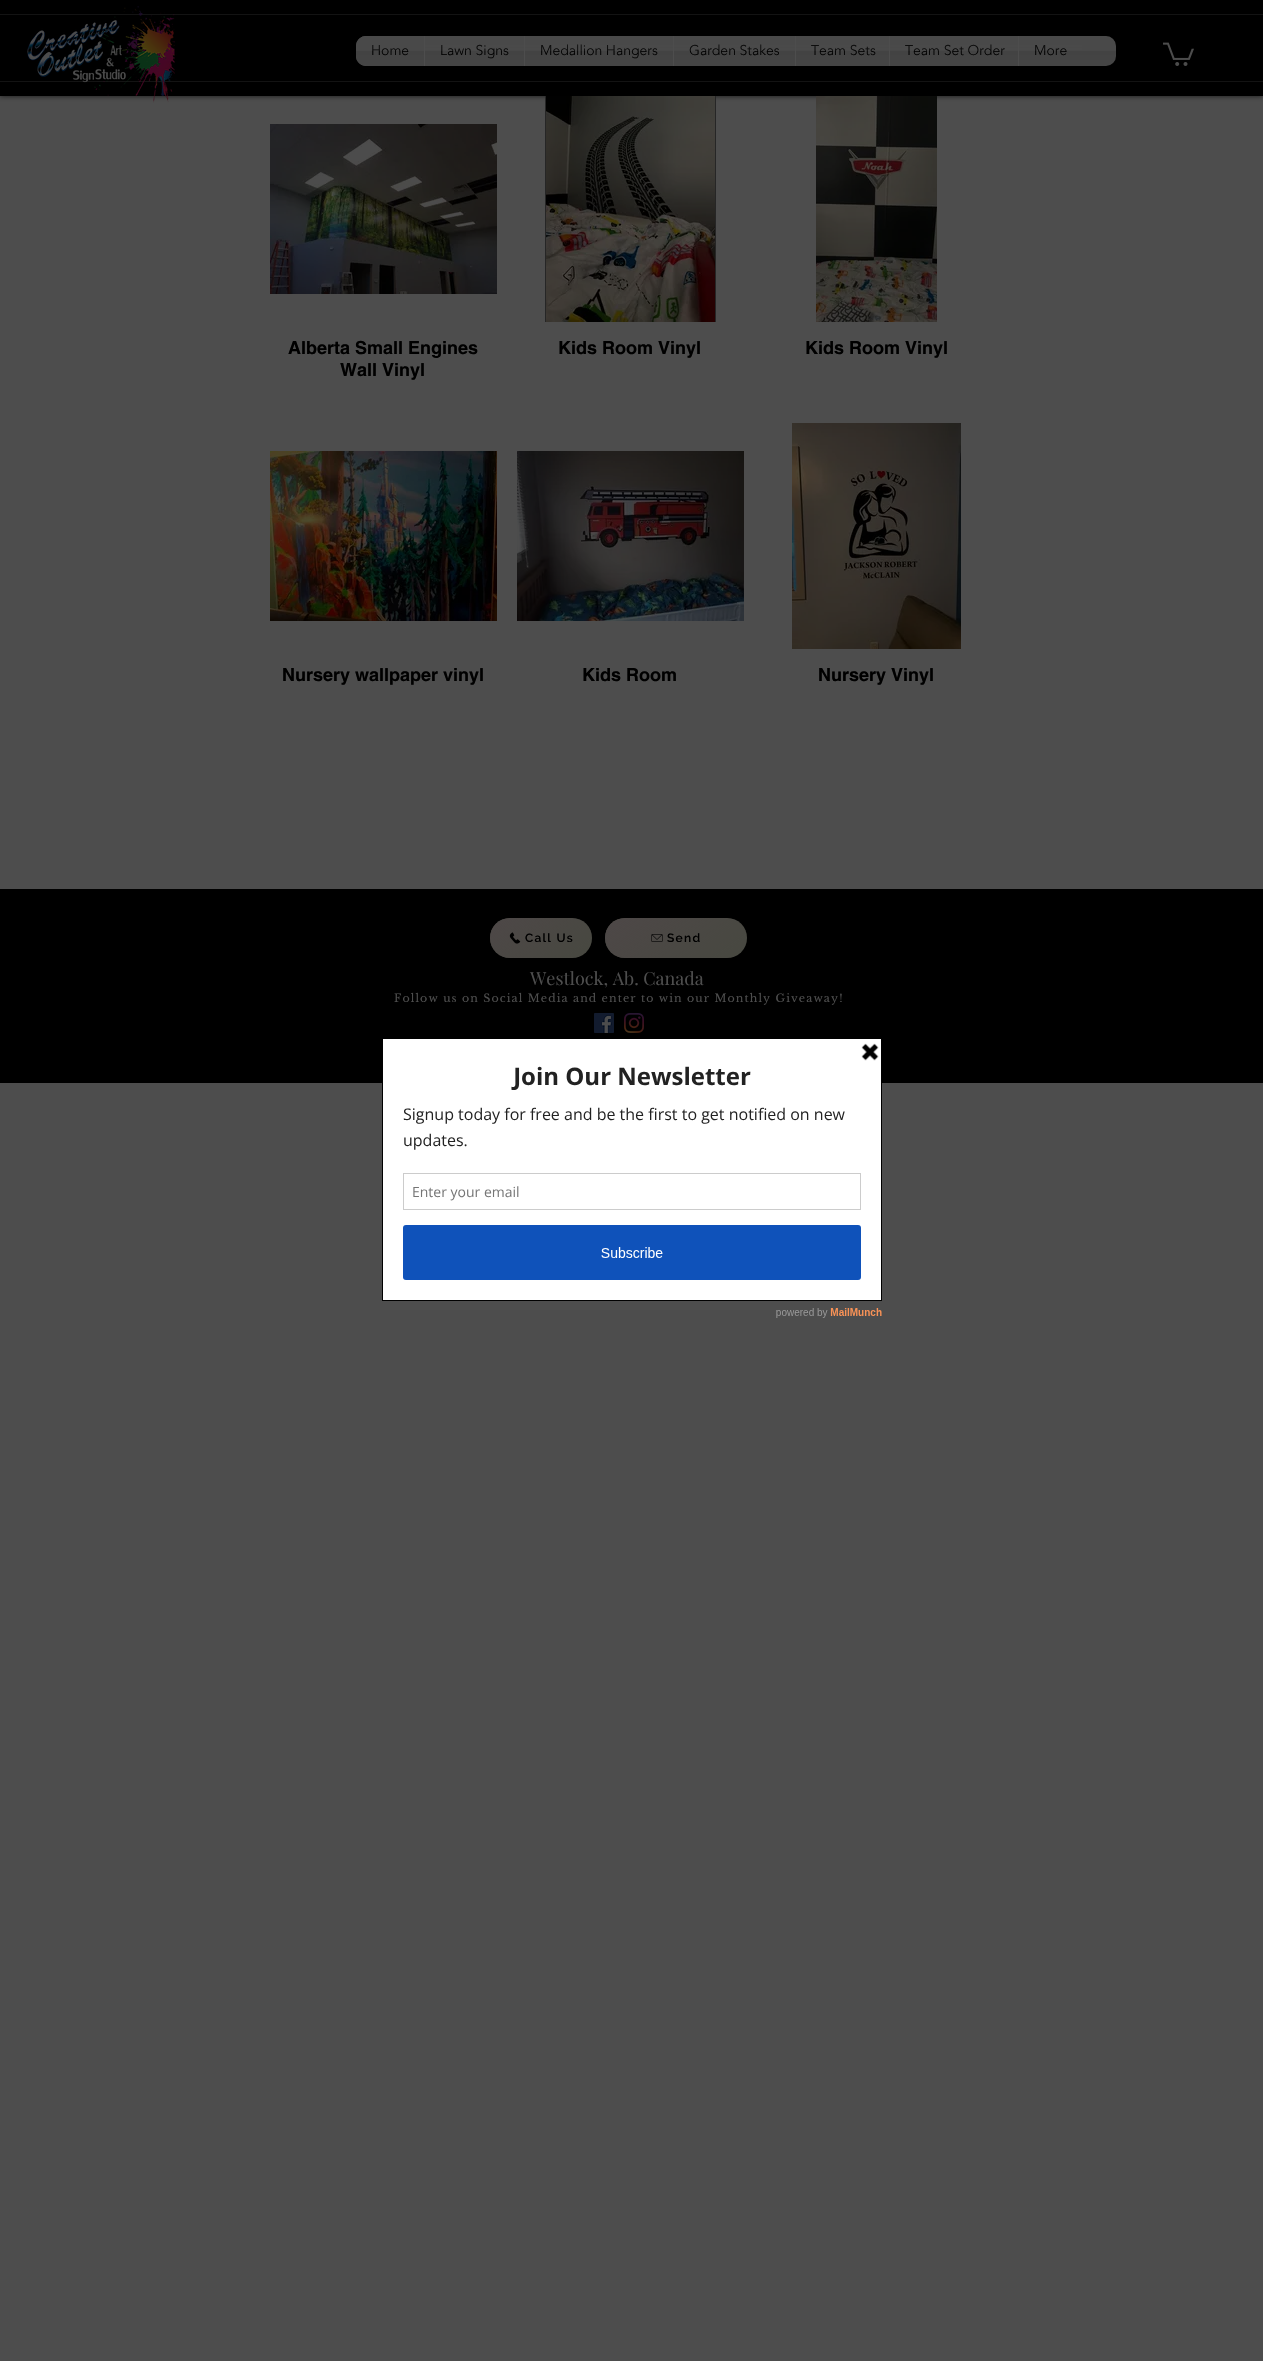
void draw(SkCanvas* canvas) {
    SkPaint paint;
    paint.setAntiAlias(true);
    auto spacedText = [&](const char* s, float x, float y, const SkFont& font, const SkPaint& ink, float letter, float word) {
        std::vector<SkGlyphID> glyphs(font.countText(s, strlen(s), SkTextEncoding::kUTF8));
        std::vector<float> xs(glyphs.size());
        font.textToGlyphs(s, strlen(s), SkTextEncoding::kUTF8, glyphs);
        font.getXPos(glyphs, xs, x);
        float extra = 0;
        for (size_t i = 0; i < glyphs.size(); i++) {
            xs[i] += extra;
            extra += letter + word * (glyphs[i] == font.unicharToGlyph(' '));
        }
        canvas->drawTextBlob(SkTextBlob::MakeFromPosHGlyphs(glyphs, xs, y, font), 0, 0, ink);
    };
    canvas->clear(0xFF4D4D4D);
    paint.setColor(0xB3000000);
    paint.setMaskFilter(SkMaskFilter::MakeBlur(kNormal_SkBlurStyle, 2.5f));
    canvas->drawRect(SkRect::MakeXYWH(0, 0, 1263, 96), paint);
    paint.setMaskFilter(nullptr);
    paint.setColor(0xFF000000);
    canvas->drawRect(SkRect::MakeXYWH(0, 0, 1263, 96), paint);
    paint.setColor(0xFF131313);
    canvas->drawRect(SkRect::MakeXYWH(0, 14, 1263, 1), paint);
    canvas->drawRect(SkRect::MakeXYWH(0, 81, 1263, 1), paint);
    paint.setColor(0xFF484848);
    canvas->drawRoundRect(SkRect::MakeXYWH(356, 36, 760, 30), 10, 10, paint);
    canvas->drawImageRect(SkImages::DeferredFromEncodedData(SkData::MakeFromFileName("img1.png")), SkRect::MakeXYWH(356, 36, 760, 30), SkSamplingOptions());
    canvas->drawPath(SkPathBuilder().moveTo(366, 36).lineTo(424, 36).lineTo(424, 66).lineTo(366, 66).cubicTo(360.5f, 66, 356, 61.5f, 356, 56).lineTo(356, 46).cubicTo(356, 40.5f, 360.5f, 36, 366, 36).close().detach(), paint);
    SkFont font1(fontMgr->matchFamilyStyle("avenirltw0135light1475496", SkFontStyle(300, SkFontStyle::kNormal_Width, SkFontStyle::kUpright_Slant)), 14);
    font1.setSubpixel(true);
    paint.setColor(0xFF000000);
    canvas->drawString("Home", 371, 55, font1, paint);
    canvas->drawImageRect(SkImages::DeferredFromEncodedData(SkData::MakeFromFileName("img2.png")), SkRect::MakeXYWH(356, 36, 68, 30), SkSamplingOptions());
    paint.setColor(0xFF484848);
    canvas->drawRect(SkRect::MakeXYWH(425, 51, 99, 15), paint);
    paint.setColor(0xFF4D4D4D);
    canvas->drawRect(SkRect::MakeXYWH(424, 36, 1, 30), paint);
    paint.setColor(0xFF000000);
    canvas->drawString("Lawn Signs", 440, 55, font1, paint);
    canvas->drawImageRect(SkImages::DeferredFromEncodedData(SkData::MakeFromFileName("img3.png")), SkRect::MakeXYWH(425, 44, 99, 22), SkSamplingOptions());
    paint.setColor(0xFF484848);
    canvas->drawRect(SkRect::MakeXYWH(525, 51, 148, 15), paint);
    paint.setColor(0xFF4D4D4D);
    canvas->drawRect(SkRect::MakeXYWH(524, 36, 1, 30), paint);
    paint.setColor(0xFF000000);
    canvas->drawString("Medallion Hangers", 540, 55, font1, paint);
    canvas->drawImageRect(SkImages::DeferredFromEncodedData(SkData::MakeFromFileName("img4.png")), SkRect::MakeXYWH(525, 44, 148, 22), SkSamplingOptions());
    paint.setColor(0xFF484848);
    canvas->drawRect(SkRect::MakeXYWH(674, 51, 121, 15), paint);
    paint.setColor(0xFF4D4D4D);
    canvas->drawRect(SkRect::MakeXYWH(673, 36, 1, 30), paint);
    paint.setColor(0xFF000000);
    canvas->drawString("Garden Stakes", 689, 55, font1, paint);
    canvas->drawImageRect(SkImages::DeferredFromEncodedData(SkData::MakeFromFileName("img5.png")), SkRect::MakeXYWH(674, 44, 121, 22), SkSamplingOptions());
    paint.setColor(0xFF484848);
    canvas->drawRect(SkRect::MakeXYWH(796, 51, 93, 15), paint);
    paint.setColor(0xFF4D4D4D);
    canvas->drawRect(SkRect::MakeXYWH(795, 36, 1, 30), paint);
    paint.setColor(0xFF000000);
    canvas->drawString("Team Sets", 811, 55, font1, paint);
    canvas->drawImageRect(SkImages::DeferredFromEncodedData(SkData::MakeFromFileName("img6.png")), SkRect::MakeXYWH(796, 44, 93, 22), SkSamplingOptions());
    paint.setColor(0xFF484848);
    canvas->drawRect(SkRect::MakeXYWH(890, 51, 128, 15), paint);
    paint.setColor(0xFF4D4D4D);
    canvas->drawRect(SkRect::MakeXYWH(889, 36, 1, 30), paint);
    paint.setColor(0xFF000000);
    canvas->drawString("Team Set Order", 905, 55, font1, paint);
    canvas->drawImageRect(SkImages::DeferredFromEncodedData(SkData::MakeFromFileName("img7.png")), SkRect::MakeXYWH(890, 44, 128, 22), SkSamplingOptions());
    paint.setColor(0xFF484848);
    canvas->drawRect(SkRect::MakeXYWH(1019, 51, 63, 15), paint);
    paint.setColor(0xFF4D4D4D);
    canvas->drawRect(SkRect::MakeXYWH(1018, 36, 1, 30), paint);
    paint.setColor(0xFF000000);
    canvas->drawString("More", 1034, 55, font1, paint);
    canvas->drawImageRect(SkImages::DeferredFromEncodedData(SkData::MakeFromFileName("img8.png")), SkRect::MakeXYWH(1019, 45, 63, 21), SkSamplingOptions());
    canvas->drawImageRect(SkImages::DeferredFromEncodedData(SkData::MakeFromFileName("img9.png")), SkRect::MakeXYWH(1163, 42, 31, 24), SkSamplingOptions());
    canvas->drawImageRect(SkImages::DeferredFromEncodedData(SkData::MakeFromFileName("img10.png")), SkRect::MakeXYWH(27, 6, 150, 97), SkSamplingOptions());
    canvas->drawImageRect(SkImages::DeferredFromEncodedData(SkData::MakeFromFileName("img11.png")), SkRect::MakeXYWH(270, 124, 227, 170), SkSamplingOptions());
    SkFont font2(fontMgr->matchFamilyStyle("helvetica", SkFontStyle::Bold()), 18);
    font2.setSubpixel(true);
    canvas->drawString("Alberta Small Engines", 288, 354, font2, paint);
    canvas->drawString("Wall Vinyl", 340, 376, font2, paint);
    paint.setColor(0xFF262626);
    canvas->drawRect(SkRect::MakeXYWH(545, 96, 171, 226), paint);
    canvas->drawImageRect(SkImages::DeferredFromEncodedData(SkData::MakeFromFileName("img12.png")), SkRect::MakeXYWH(546, 96, 169, 226), SkSamplingOptions());
    paint.setColor(0xFF000000);
    canvas->drawString("Kids Room Vinyl", 558, 354, font2, paint);
    canvas->drawImageRect(SkImages::DeferredFromEncodedData(SkData::MakeFromFileName("img13.png")), SkRect::MakeXYWH(816, 96, 121, 226), SkSamplingOptions());
    canvas->drawString("Kids Room Vinyl", 805, 354, font2, paint);
    canvas->drawImageRect(SkImages::DeferredFromEncodedData(SkData::MakeFromFileName("img14.png")), SkRect::MakeXYWH(270, 451, 227, 170), SkSamplingOptions());
    canvas->drawString("Nursery wallpaper vinyl", 282, 681, font2, paint);
    canvas->drawImageRect(SkImages::DeferredFromEncodedData(SkData::MakeFromFileName("img15.png")), SkRect::MakeXYWH(517, 451, 227, 170), SkSamplingOptions());
    canvas->drawString("Kids Room", 582, 681, font2, paint);
    canvas->drawImageRect(SkImages::DeferredFromEncodedData(SkData::MakeFromFileName("img16.png")), SkRect::MakeXYWH(792, 423, 169, 226), SkSamplingOptions());
    canvas->drawString("Nursery Vinyl", 818, 681, font2, paint);
    canvas->drawRect(SkRect::MakeXYWH(0, 889, 1263, 194), paint);
    paint.setColor(0xFF474840);
    canvas->drawRoundRect(SkRect::MakeXYWH(490, 918, 102, 40), 20, 20, paint);
    {
        const SkColor colors[] = {0xFF4D4747, 0x004D4747};
        const float stops[] = {0, 1};
        const SkPoint ends[] = {{515, 901}, {567, 975}};
        paint.setShader(SkGradientShader::MakeLinear(ends, colors, stops, 2, SkTileMode::kClamp));
        paint.setAlpha(255);
    }
    canvas->drawRoundRect(SkRect::MakeXYWH(490, 918, 102, 40), 20, 20, paint);
    canvas->drawImageRect(SkImages::DeferredFromEncodedData(SkData::MakeFromFileName("img17.png")), SkRect::MakeXYWH(509, 932, 12, 12), SkSamplingOptions());
    SkFont font3(fontMgr->matchFamilyStyle("Raleway", SkFontStyle(600, SkFontStyle::kNormal_Width, SkFontStyle::kUpright_Slant)), 12);
    font3.setSubpixel(true);
    paint.setShader(nullptr);
    paint.setColor(0xFF000000);
    spacedText("Call Us", 525, 942, font3, paint, 1.25f, 0);
    paint.setColor(0xFF474840);
    canvas->drawRoundRect(SkRect::MakeXYWH(605, 918, 142, 40), 20, 20, paint);
    {
        const SkColor colors[] = {0xFF4D4747, 0x004D4747};
        const float stops[] = {0, 1};
        const SkPoint ends[] = {{643, 891}, {709, 985}};
        paint.setShader(SkGradientShader::MakeLinear(ends, colors, stops, 2, SkTileMode::kClamp));
        paint.setAlpha(255);
    }
    canvas->drawRoundRect(SkRect::MakeXYWH(605, 918, 142, 40), 20, 20, paint);
    canvas->drawImageRect(SkImages::DeferredFromEncodedData(SkData::MakeFromFileName("img18.png")), SkRect::MakeXYWH(651, 934, 12, 8), SkSamplingOptions());
    paint.setShader(nullptr);
    paint.setColor(0xFF000000);
    spacedText("Send", 667, 942, font3, paint, 1.25f, 0);
    SkFont font4(fontMgr->matchFamilyStyle("Playfair Display", SkFontStyle::Normal()), 18);
    font4.setSubpixel(true);
    paint.setColor(0xFF4D4D4D);
    canvas->drawString("Westlock, Ab. Canada", 530, 985, font4, paint);
    SkFont font5(fontMgr->matchFamilyStyle("Libre Baskerville", SkFontStyle::Normal()), 11);
    font5.setSubpixel(true);
    spacedText("Follow us on Social Media and enter to win our Monthly Giveaway!", 394, 1002, font5, paint, 1.1f, 0);
    canvas->drawImageRect(SkImages::DeferredFromEncodedData(SkData::MakeFromFileName("img19.png")), SkRect::MakeXYWH(594, 1013, 20, 20), SkSamplingOptions());
    canvas->drawImageRect(SkImages::DeferredFromEncodedData(SkData::MakeFromFileName("img20.png")), SkRect::MakeXYWH(624, 1013, 20, 20), SkSamplingOptions());
    canvas->drawImageRect(SkImages::DeferredFromEncodedData(SkData::MakeFromFileName("img21.png")), SkRect::MakeXYWH(382, 1039, 500, 279), SkSamplingOptions());
}
